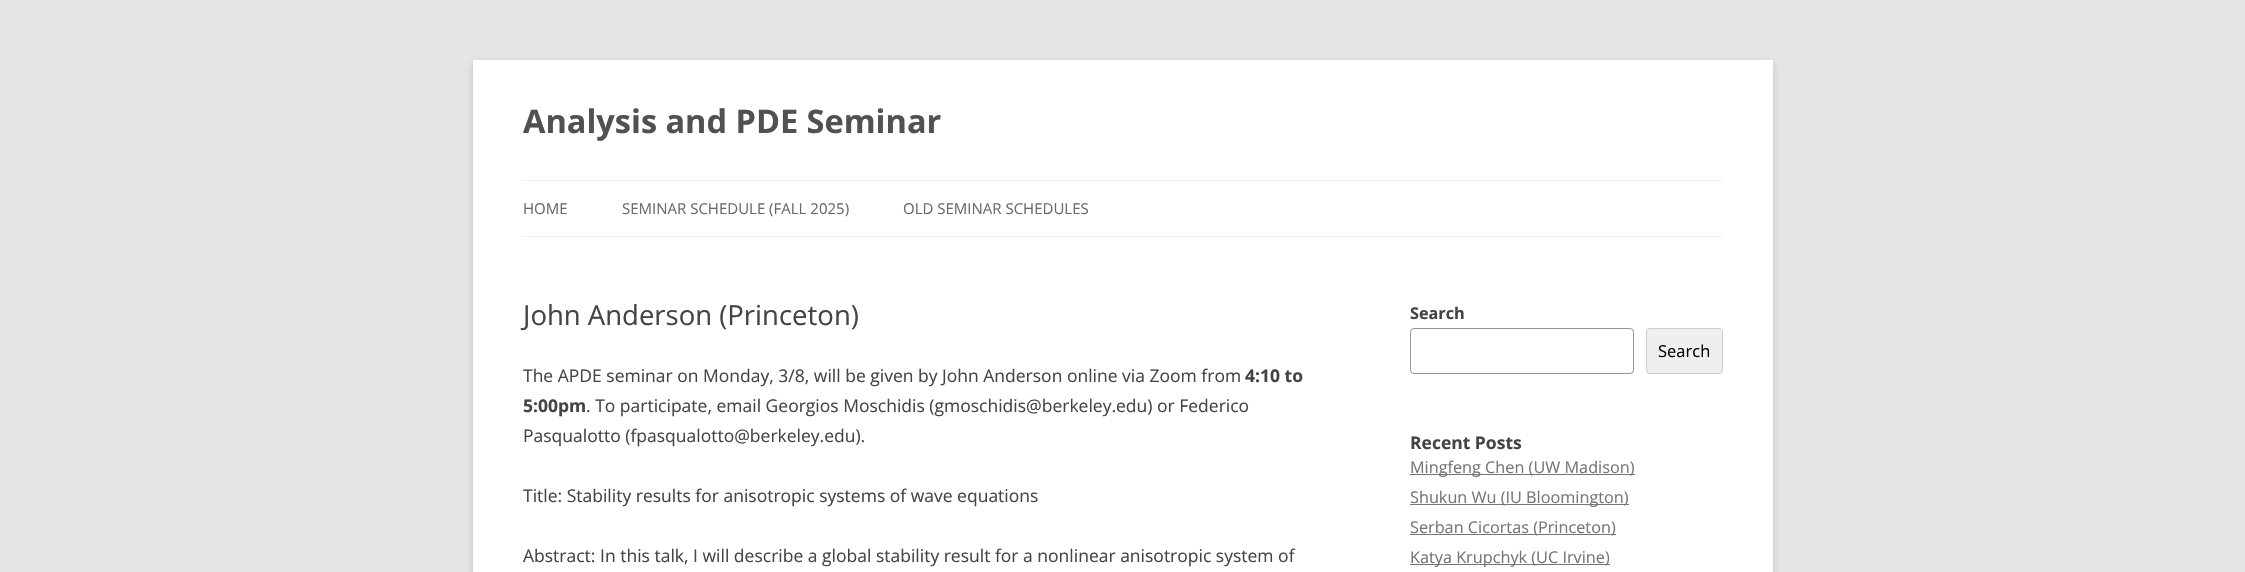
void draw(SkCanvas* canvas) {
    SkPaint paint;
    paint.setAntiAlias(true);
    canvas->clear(0xFFE6E6E6);
    paint.setColor(0x4D646464);
    paint.setMaskFilter(SkMaskFilter::MakeBlur(kNormal_SkBlurStyle, 4));
    canvas->drawRect(SkRect::MakeXYWH(473, 63, 1300, 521), paint);
    paint.setMaskFilter(nullptr);
    paint.setColor(0xFFFFFFFF);
    canvas->drawRect(SkRect::MakeXYWH(473, 60, 1300, 512), paint);
    SkFont font1(fontMgr->matchFamilyStyle("Open Sans", SkFontStyle::Bold()), 32.5f);
    font1.setSubpixel(true);
    paint.setColor(0xFF515151);
    canvas->drawString("Analysis and PDE Seminar", 523, 133, font1, paint);
    paint.setColor(0xFFEDEDED);
    canvas->drawRect(SkRect::MakeXYWH(523, 180, 1200, 1), paint);
    canvas->drawRect(SkRect::MakeXYWH(523, 236, 1200, 1), paint);
    SkFont font2(fontMgr->matchFamilyStyle("Open Sans", SkFontStyle::Normal()), 15);
    font2.setSubpixel(true);
    paint.setColor(0xFF6A6A6A);
    canvas->drawString("HOME", 523, 214, font2, paint);
    canvas->drawString("SEMINAR SCHEDULE (FALL 2025)", 622, 214, font2, paint);
    canvas->drawString("OLD SEMINAR SCHEDULES", 903, 214, font2, paint);
    SkFont font3(fontMgr->matchFamilyStyle("Open Sans", SkFontStyle::Normal()), 27.5f);
    font3.setSubpixel(true);
    paint.setColor(0xFF444444);
    canvas->drawString("John Anderson (Princeton)", 523, 325, font3, paint);
    SkFont font4(fontMgr->matchFamilyStyle("Open Sans", SkFontStyle::Normal()), 17.5f);
    font4.setSubpixel(true);
    canvas->drawString("The APDE seminar on Monday, 3/8, will be given by John Anderson online via Zoom from", 523, 382, font4, paint);
    SkFont font5(fontMgr->matchFamilyStyle("Open Sans", SkFontStyle::Bold()), 17.5f);
    font5.setSubpixel(true);
    canvas->drawString("4:10 to", 1245, 382, font5, paint);
    canvas->drawString("5:00pm", 523, 412, font5, paint);
    canvas->drawString(". To participate, email Georgios Moschidis (gmoschidis@berkeley.edu) or Federico", 586, 412, font4, paint);
    canvas->drawString("Pasqualotto (fpasqualotto@berkeley.edu).", 523, 442, font4, paint);
    canvas->drawString("Title: Stability results for anisotropic systems of wave equations", 523, 502, font4, paint);
    canvas->drawString("Abstract: In this talk, I will describe a global stability result for a nonlinear anisotropic system of", 523, 562, font4, paint);
    SkFont font6(fontMgr->matchFamilyStyle("Open Sans", SkFontStyle::Bold()), 16.25f);
    font6.setSubpixel(true);
    canvas->drawString("Search", 1410, 319, font6, paint);
    paint.setStyle(SkPaint::kStroke_Style);
    paint.setStrokeWidth(1);
    paint.setColor(0xFF949494);
    canvas->drawRoundRect(SkRect::MakeXYWH(1410.5f, 328.5f, 223, 45), 3.5f, 3.5f, paint);
    paint.setStyle(SkPaint::kFill_Style);
    paint.setColor(0xFFEFEFEF);
    canvas->drawRoundRect(SkRect::MakeXYWH(1646.5f, 328.5f, 76, 45), 3.5f, 3.5f, paint);
    paint.setStyle(SkPaint::kStroke_Style);
    paint.setColor(0xFFCCCCCC);
    canvas->drawRoundRect(SkRect::MakeXYWH(1646.5f, 328.5f, 76, 45), 3.5f, 3.5f, paint);
    SkFont font7(fontMgr->matchFamilyStyle("Open Sans", SkFontStyle::Normal()), 16.5f);
    font7.setSubpixel(true);
    paint.setStyle(SkPaint::kFill_Style);
    paint.setColor(0xFF000000);
    canvas->drawString("Search", 1658, 357, font7, paint);
    paint.setColor(0xFF444444);
    canvas->drawString("Recent Posts", 1410, 449, font5, paint);
    paint.setColor(0xFF757575);
    canvas->drawRect(SkRect::MakeXYWH(1410, 474, 225, 1), paint);
    SkFont font8(fontMgr->matchFamilyStyle("Open Sans", SkFontStyle::Normal()), 16.25f);
    font8.setSubpixel(true);
    canvas->drawString("Mingfeng Chen (UW Madison)", 1410, 473, font8, paint);
    canvas->drawRect(SkRect::MakeXYWH(1410, 504, 219, 1), paint);
    canvas->drawString("Shukun Wu (IU Bloomington)", 1410, 503, font8, paint);
    canvas->drawRect(SkRect::MakeXYWH(1410, 534, 206, 1), paint);
    canvas->drawString("Serban Cicortas (Princeton)", 1410, 533, font8, paint);
    canvas->drawRect(SkRect::MakeXYWH(1410, 564, 200, 1), paint);
    canvas->drawString("Katya Krupchyk (UC Irvine)", 1410, 563, font8, paint);
}
